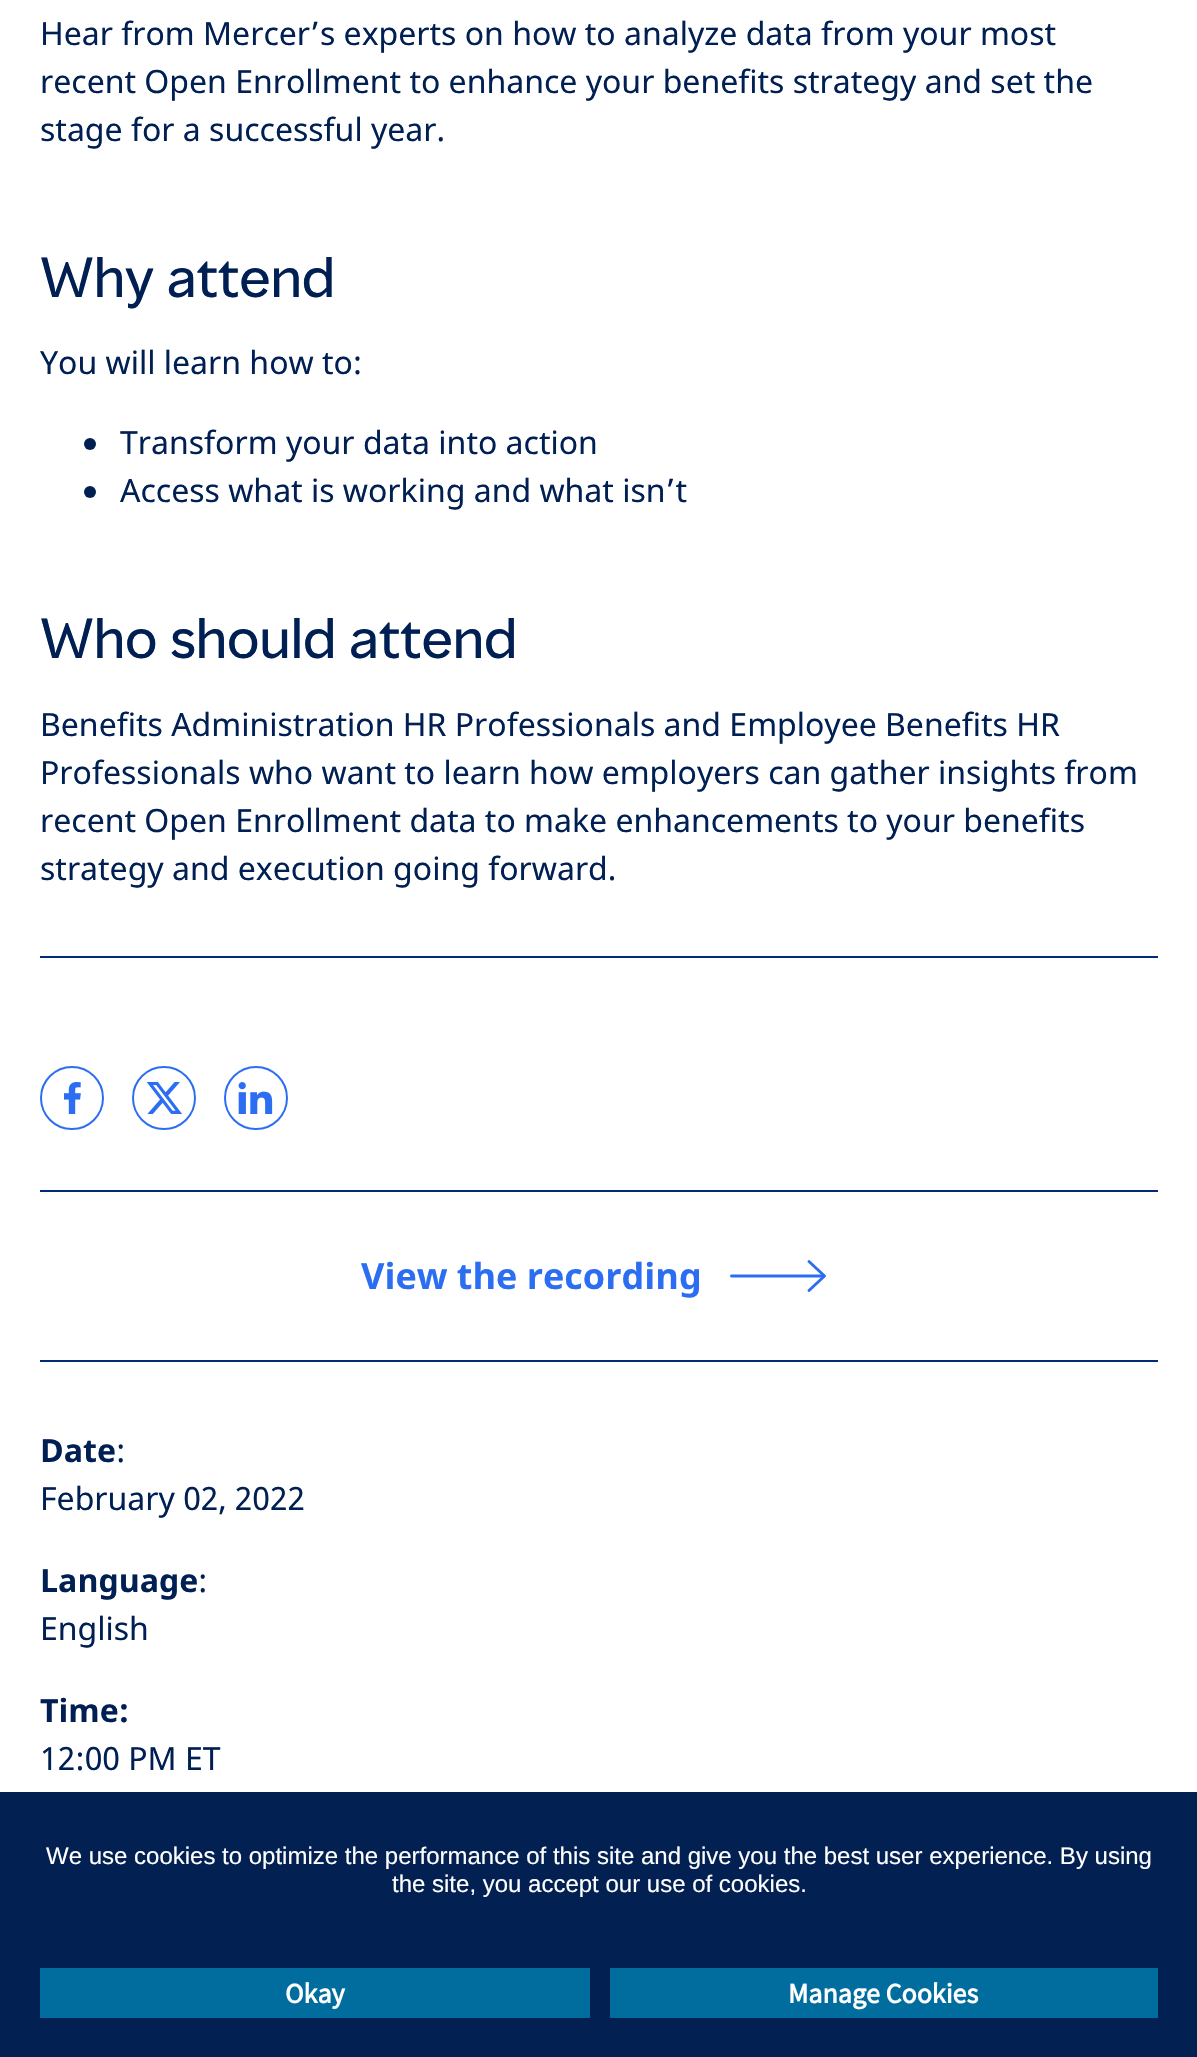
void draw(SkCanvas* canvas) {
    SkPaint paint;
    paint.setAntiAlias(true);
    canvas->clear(0xFFFFFFFF);
    SkFont font1(fontMgr->matchFamilyStyle("Noto Sans", SkFontStyle::Normal()), 32);
    font1.setSubpixel(true);
    paint.setColor(0xFF001F52);
    canvas->drawString("Hear from Mercer’s experts on how to analyze data from your most", 40, 45, font1, paint);
    canvas->drawString("recent Open Enrollment to enhance your benefits strategy and set the", 40, 93, font1, paint);
    canvas->drawString("stage for a successful year.", 40, 141, font1, paint);
    SkFont font2(fontMgr->matchFamilyStyle("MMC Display", SkFontStyle::Normal()), 52);
    font2.setSubpixel(true);
    canvas->drawString("Why attend", 40, 297, font2, paint);
    canvas->drawString("You will learn how to:", 40, 374, font1, paint);
    canvas->drawCircle(90, 444, 6, paint);
    canvas->drawString("Transform your data into action", 120, 454, font1, paint);
    canvas->drawCircle(90, 492, 6, paint);
    canvas->drawString("Access what is working and what isn’t", 120, 502, font1, paint);
    canvas->drawString("Who should attend", 40, 658, font2, paint);
    canvas->drawString("Benefits Administration HR Professionals and Employee Benefits HR", 40, 736, font1, paint);
    canvas->drawString("Professionals who want to learn how employers can gather insights from", 40, 784, font1, paint);
    canvas->drawString("recent Open Enrollment data to make enhancements to your benefits", 40, 832, font1, paint);
    canvas->drawString("strategy and execution going forward.", 40, 880, font1, paint);
    paint.setColor(0xFF002C77);
    canvas->drawRect(SkRect::MakeXYWH(40, 956, 1118, 2), paint);
    canvas->drawImageRect(SkImages::DeferredFromEncodedData(SkData::MakeFromFileName("img1.png")), SkRect::MakeXYWH(64, 1082, 17, 32), SkSamplingOptions());
    paint.setStyle(SkPaint::kStroke_Style);
    paint.setStrokeWidth(2);
    paint.setColor(0xFF2C6EF2);
    canvas->drawCircle(72, 1098, 31, paint);
    canvas->drawImageRect(SkImages::DeferredFromEncodedData(SkData::MakeFromFileName("img2.png")), SkRect::MakeXYWH(146, 1082, 36, 32), SkSamplingOptions());
    canvas->drawCircle(164, 1098, 31, paint);
    canvas->drawImageRect(SkImages::DeferredFromEncodedData(SkData::MakeFromFileName("img3.png")), SkRect::MakeXYWH(238, 1082, 35, 32), SkSamplingOptions());
    canvas->drawCircle(256, 1098, 31, paint);
    paint.setStyle(SkPaint::kFill_Style);
    paint.setColor(0xFF002C77);
    canvas->drawRect(SkRect::MakeXYWH(40, 1190, 1118, 2), paint);
    canvas->drawRect(SkRect::MakeXYWH(40, 1360, 1118, 2), paint);
    SkFont font3(fontMgr->matchFamilyStyle("Noto Sans", SkFontStyle::Bold()), 36);
    font3.setSubpixel(true);
    paint.setColor(0xFF2C6EF2);
    canvas->drawString("View the recording", 361, 1289, font3, paint);
    paint.setStyle(SkPaint::kStroke_Style);
    paint.setStrokeWidth(2.9f);
    paint.setStrokeCap(SkPaint::kRound_Cap);
    canvas->drawPath(SkPathBuilder().moveTo(731.5f, 1276).lineTo(821.5f, 1276).detach(), paint);
    paint.setStrokeJoin(SkPaint::kRound_Join);
    canvas->drawPath(SkPathBuilder().moveTo(809, 1261.5f).lineTo(824.5f, 1276).lineTo(809, 1290.5f).detach(), paint);
    SkFont font4(fontMgr->matchFamilyStyle("Noto Sans", SkFontStyle::Bold()), 32);
    font4.setSubpixel(true);
    paint.setStyle(SkPaint::kFill_Style);
    paint.setColor(0xFF001F52);
    canvas->drawString("Date", 40, 1462, font4, paint);
    canvas->drawString(":", 116, 1462, font1, paint);
    canvas->drawString("February 02, 2022", 40, 1510, font1, paint);
    canvas->drawString("Language", 40, 1592, font4, paint);
    canvas->drawString(":", 198, 1592, font1, paint);
    canvas->drawString("English", 40, 1640, font1, paint);
    canvas->drawString("Time:", 40, 1722, font4, paint);
    canvas->drawString("12:00 PM ET", 40, 1770, font1, paint);
    paint.setColor(0xFF022152);
    canvas->drawRect(SkRect::MakeXYWH(0, 1792, 1197, 265), paint);
    SkFont font5(fontMgr->matchFamilyStyle("Liberation Sans", SkFontStyle::Normal()), 24);
    font5.setSubpixel(true);
    paint.setColor(0xFFFFFFFF);
    canvas->drawString("We use cookies to optimize the performance of this site and give you the best user experience. By using", 46, 1864, font5, paint);
    canvas->drawString("the site, you accept our use of cookies.", 392, 1892, font5, paint);
    paint.setColor(0xFF006D9E);
    canvas->drawRect(SkRect::MakeXYWH(40, 1968, 550, 50), paint);
    SkFont font6(fontMgr->matchFamilyStyle("Source Sans Pro", SkFontStyle::Bold()), 28);
    font6.setSubpixel(true);
    paint.setColor(0xFFFFFFFF);
    canvas->drawString("Okay", 285, 2003, font6, paint);
    paint.setColor(0xFF006D9E);
    canvas->drawRect(SkRect::MakeXYWH(610, 1968, 548, 50), paint);
    paint.setColor(0xFFFFFFFF);
    canvas->drawString("Manage Cookies", 788, 2003, font6, paint);
}
